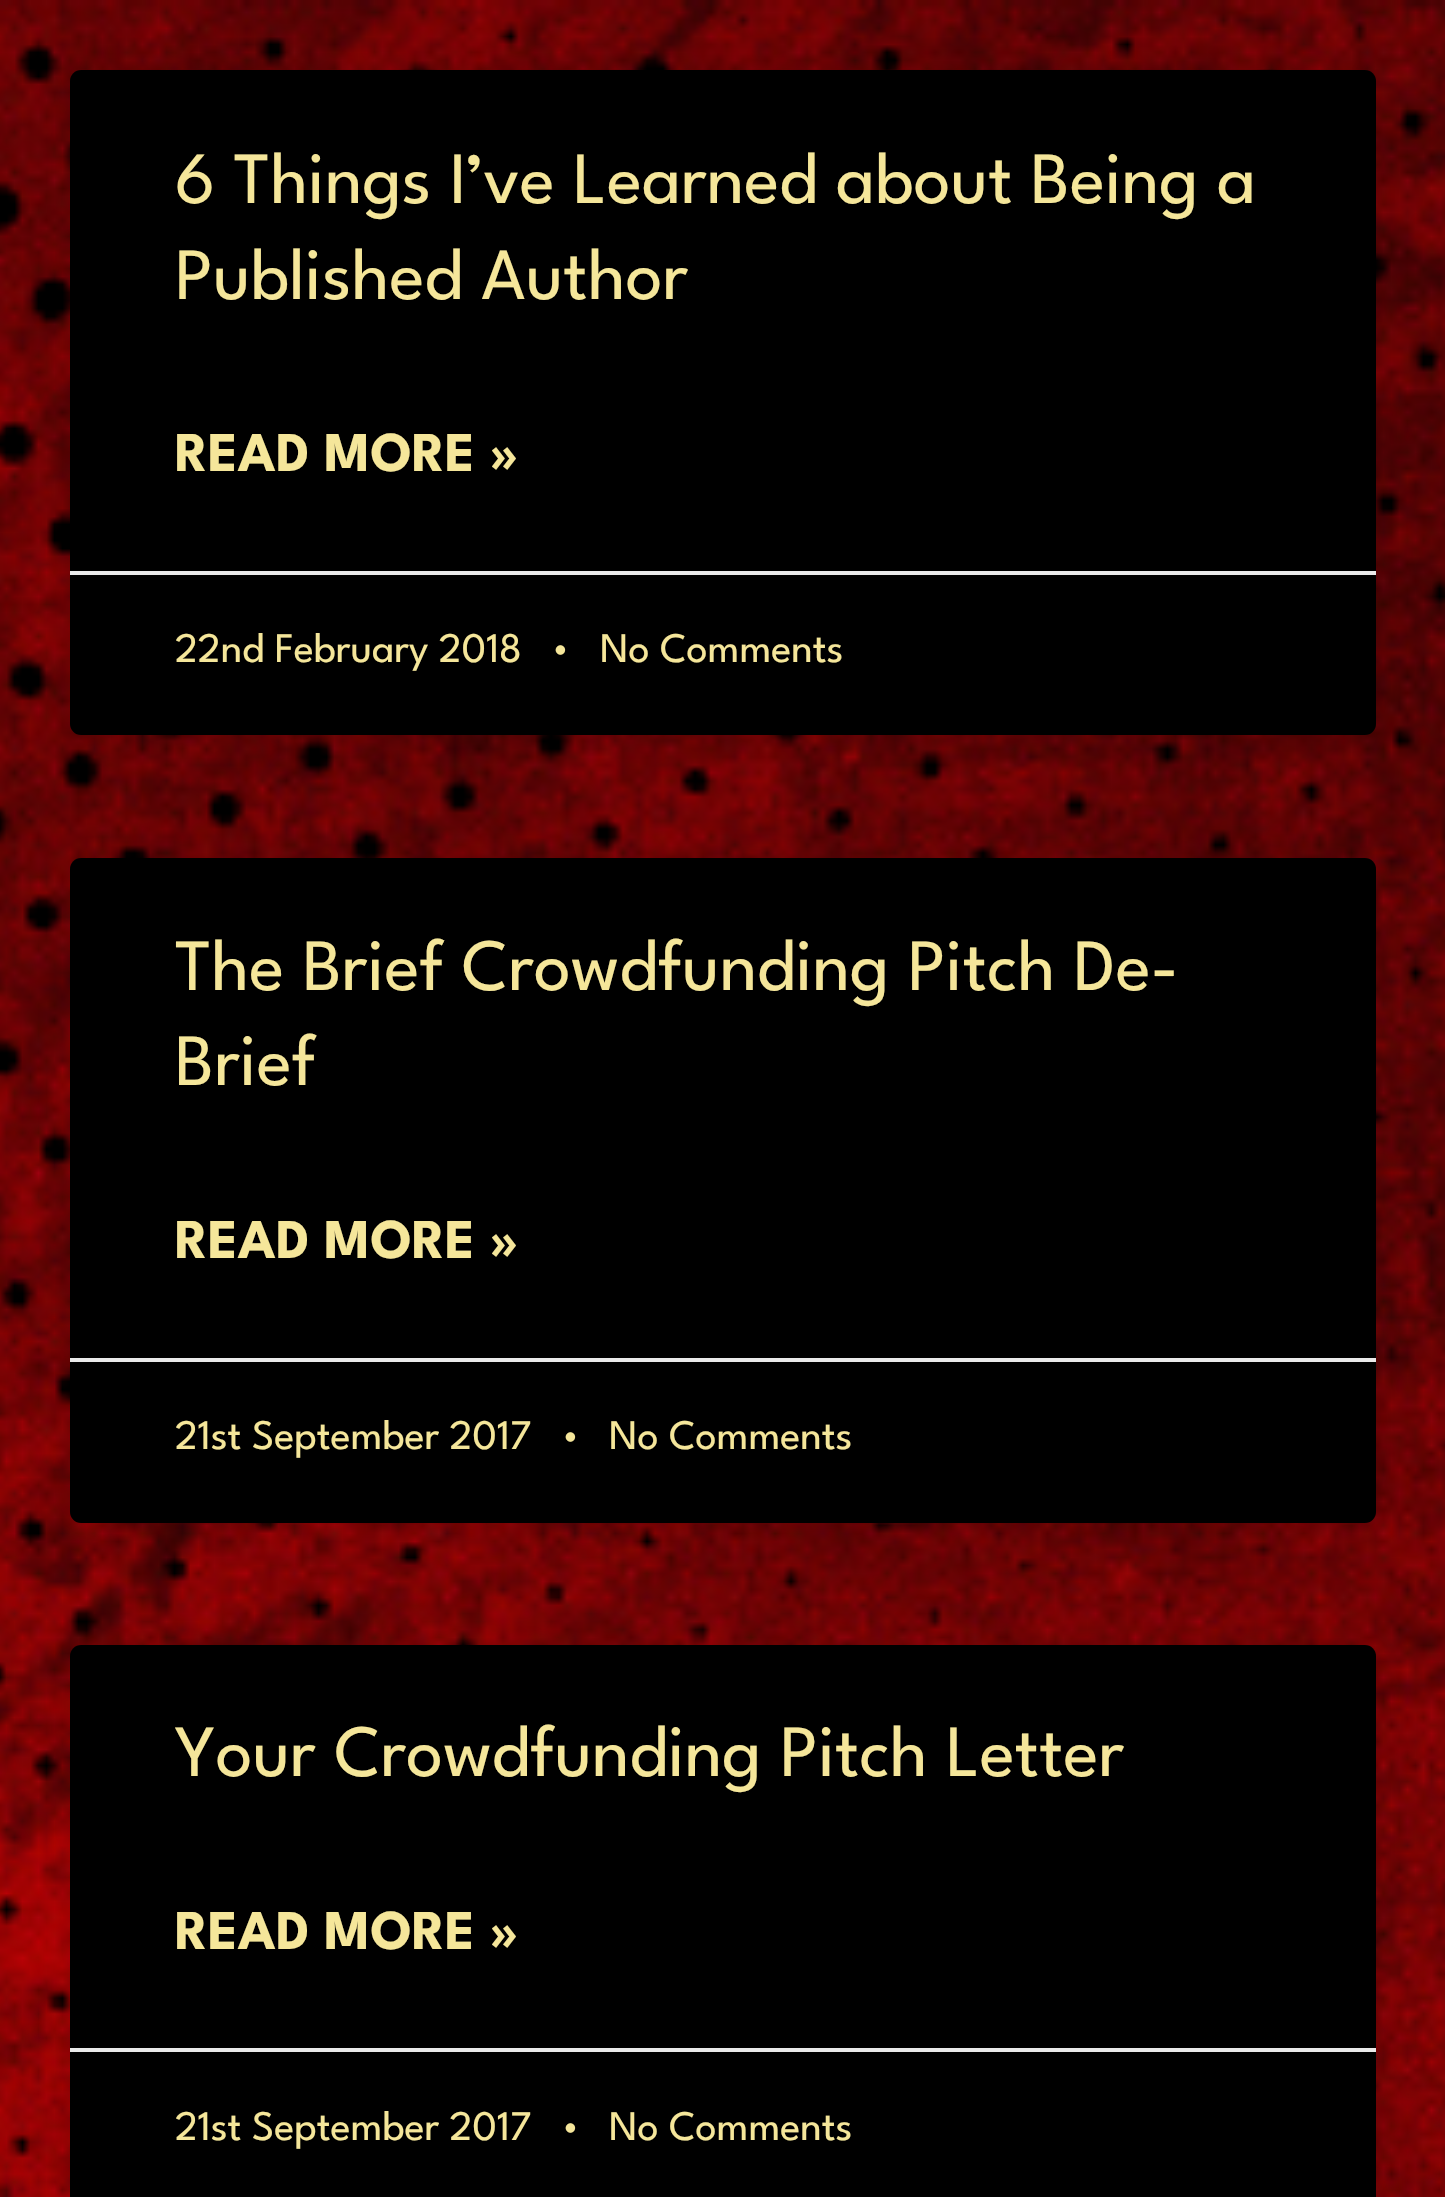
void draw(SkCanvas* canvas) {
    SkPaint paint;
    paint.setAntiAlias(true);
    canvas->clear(0xFFFFFFFF);
    canvas->drawImageRect(SkImages::DeferredFromEncodedData(SkData::MakeFromFileName("img1.png")), SkRect::MakeXYWH(0, 0, 1445, 2197), SkSamplingOptions());
    paint.setColor(0x26000000);
    paint.setMaskFilter(SkMaskFilter::MakeBlur(kNormal_SkBlurStyle, 17.5f));
    canvas->drawRoundRect(SkRect::MakeXYWH(70, 70, 1306, 665), 11, 11, paint);
    paint.setMaskFilter(nullptr);
    paint.setColor(0xFF000000);
    canvas->drawRoundRect(SkRect::MakeXYWH(70, 70, 1306, 665), 11, 11, paint);
    SkFont font1(fontMgr->matchFamilyStyle("League Spartan", SkFontStyle::Normal()), 73.5f);
    font1.setSubpixel(true);
    paint.setColor(0xFFF5E69A);
    canvas->drawString("6 Things I’ve Learned about Being a", 175, 203, font1, paint);
    canvas->drawString("Published Author", 175, 299, font1, paint);
    SkFont font2(fontMgr->matchFamilyStyle("League Spartan", SkFontStyle::Bold()), 56);
    font2.setSubpixel(true);
    canvas->drawString("READ MORE »", 175, 471, font2, paint);
    paint.setColor(0xFFEAEAEA);
    canvas->drawRect(SkRect::MakeXYWH(70, 571, 1306, 4), paint);
    SkFont font3(fontMgr->matchFamilyStyle("League Spartan", SkFontStyle::Normal()), 42);
    font3.setSubpixel(true);
    paint.setColor(0xFFF5E69A);
    canvas->drawString("22nd February 2018", 175, 662, font3, paint);
    canvas->drawString("•", 550, 662, font3, paint);
    canvas->drawString("No Comments", 600, 662, font3, paint);
    paint.setColor(0x26000000);
    paint.setMaskFilter(SkMaskFilter::MakeBlur(kNormal_SkBlurStyle, 17.5f));
    canvas->drawRoundRect(SkRect::MakeXYWH(70, 858, 1306, 665), 11, 11, paint);
    paint.setMaskFilter(nullptr);
    paint.setColor(0xFF000000);
    canvas->drawRoundRect(SkRect::MakeXYWH(70, 858, 1306, 665), 11, 11, paint);
    paint.setColor(0xFFF5E69A);
    canvas->drawString("The Brief Crowdfunding Pitch De-", 175, 990, font1, paint);
    canvas->drawString("Brief", 175, 1085, font1, paint);
    canvas->drawString("READ MORE »", 175, 1258, font2, paint);
    paint.setColor(0xFFEAEAEA);
    canvas->drawRect(SkRect::MakeXYWH(70, 1358, 1306, 4), paint);
    paint.setColor(0xFFF5E69A);
    canvas->drawString("21st September 2017", 175, 1449, font3, paint);
    canvas->drawString("•", 560, 1449, font3, paint);
    canvas->drawString("No Comments", 609, 1449, font3, paint);
    paint.setColor(0x26000000);
    paint.setMaskFilter(SkMaskFilter::MakeBlur(kNormal_SkBlurStyle, 17.5f));
    canvas->drawRoundRect(SkRect::MakeXYWH(70, 1645, 1306, 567), 11, 11, paint);
    paint.setMaskFilter(nullptr);
    paint.setColor(0xFF000000);
    canvas->drawRoundRect(SkRect::MakeXYWH(70, 1645, 1306, 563), 11, 11, paint);
    paint.setColor(0xFFF5E69A);
    canvas->drawString("Your Crowdfunding Pitch Letter", 175, 1776, font1, paint);
    canvas->drawString("READ MORE »", 175, 1949, font2, paint);
    paint.setColor(0xFFEAEAEA);
    canvas->drawRect(SkRect::MakeXYWH(70, 2048, 1306, 4), paint);
    paint.setColor(0xFFF5E69A);
    canvas->drawString("21st September 2017", 175, 2140, font3, paint);
    canvas->drawString("•", 560, 2140, font3, paint);
    canvas->drawString("No Comments", 609, 2140, font3, paint);
}
